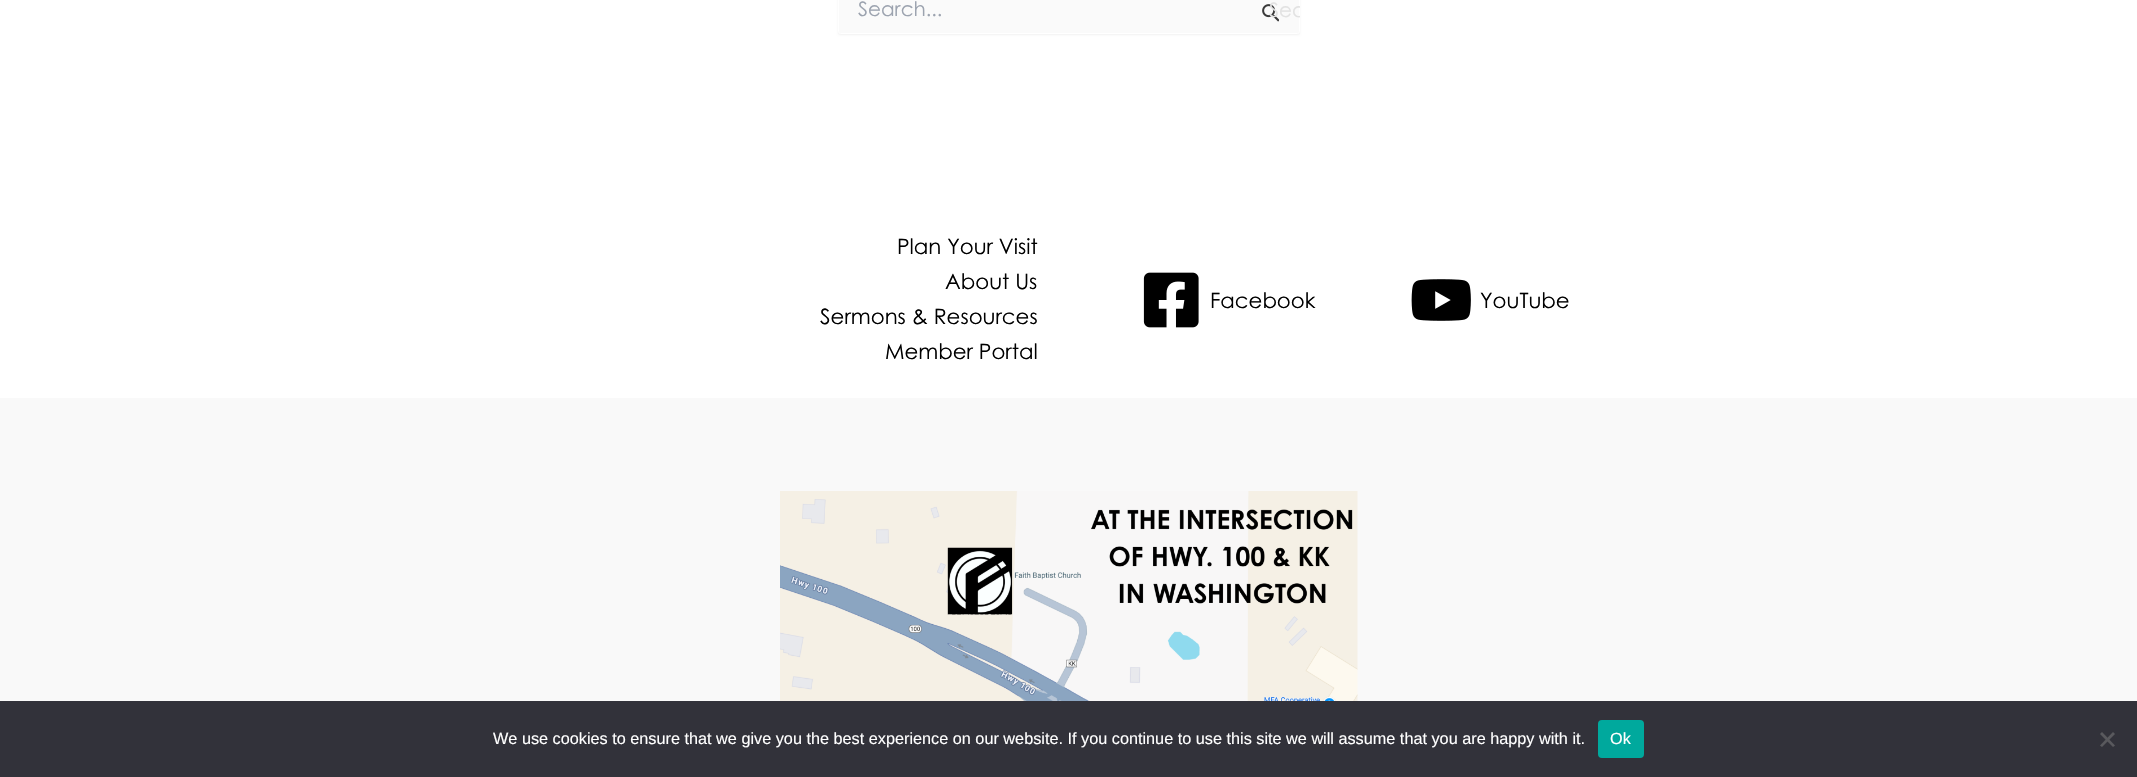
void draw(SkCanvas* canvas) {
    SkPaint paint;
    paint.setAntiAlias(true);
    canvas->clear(0xFFFFFFFF);
    paint.setColor(0x0D000000);
    paint.setMaskFilter(SkMaskFilter::MakeBlur(kNormal_SkBlurStyle, 1));
    canvas->drawRoundRect(SkRect::MakeXYWH(838, -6, 462, 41), 2.5f, 2.5f, paint);
    paint.setMaskFilter(nullptr);
    paint.setColor(0xFFFAFAFA);
    canvas->drawRoundRect(SkRect::MakeXYWH(838.5f, -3.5f, 461, 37), 2, 2, paint);
    paint.setStyle(SkPaint::kStroke_Style);
    paint.setStrokeWidth(1);
    paint.setColor(0xFFFFFFFF);
    canvas->drawRoundRect(SkRect::MakeXYWH(838.5f, -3.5f, 461, 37), 2, 2, paint);
    SkFont font1(fontMgr->matchFamilyStyle("Century Gothic", SkFontStyle::Normal()), 20);
    font1.setSubpixel(true);
    paint.setStyle(SkPaint::kFill_Style);
    paint.setColor(0xFF9CA3AF);
    canvas->drawString("Search...", 858, 16, font1, paint);
    canvas->drawImageRect(SkImages::DeferredFromEncodedData(SkData::MakeFromFileName("img1.png")), SkRect::MakeXYWH(1262, 4, 17, 18), SkSamplingOptions());
    canvas->save();
    canvas->clipPath(SkPathBuilder().moveTo(1246.5f, -16).lineTo(1297.5f, -16).cubicTo(1299, -16, 1300, -15, 1300, -13.5f).lineTo(1300, 33.5f).cubicTo(1300, 35, 1299, 36, 1297.5f, 36).lineTo(1246.5f, 36).cubicTo(1245, 36, 1244, 35, 1244, 33.5f).lineTo(1244, -13.5f).cubicTo(1244, -15, 1245, -16, 1246.5f, -16).close().detach(), true);
    paint.setColor(0xFFE2E2E2);
    canvas->drawString("Sea", 1269, 17, font1, paint);
    canvas->restore();
    SkFont font2(fontMgr->matchFamilyStyle("Century Gothic", SkFontStyle::Normal()), 21.25f);
    font2.setSubpixel(true);
    paint.setColor(0xFF000000);
    canvas->drawString("Plan Your Visit", 897, 254, font2, paint);
    canvas->drawString("About Us", 945, 289, font2, paint);
    canvas->drawString("Sermons & Resources", 820, 324, font2, paint);
    canvas->drawString("Member Portal", 885, 359, font2, paint);
    canvas->drawImageRect(SkImages::DeferredFromEncodedData(SkData::MakeFromFileName("img2.png")), SkRect::MakeXYWH(1143, 272, 56, 56), SkSamplingOptions());
    canvas->drawString("Facebook", 1210, 308, font2, paint);
    canvas->drawImageRect(SkImages::DeferredFromEncodedData(SkData::MakeFromFileName("img3.png")), SkRect::MakeXYWH(1411, 279, 60, 42), SkSamplingOptions());
    canvas->drawString("YouTube", 1480, 308, font2, paint);
    paint.setColor(0xFFF9F9F9);
    canvas->drawRect(SkRect::MakeXYWH(0, 398, 2137, 303), paint);
    canvas->drawImageRect(SkImages::DeferredFromEncodedData(SkData::MakeFromFileName("img4.png")), SkRect::MakeXYWH(780, 491, 578, 210), SkSamplingOptions());
    paint.setColor(0xFF32323A);
    canvas->drawRect(SkRect::MakeXYWH(0, 701, 2137, 76), paint);
    SkFont font3(fontMgr->matchFamilyStyle("Liberation Sans", SkFontStyle::Normal()), 16.25f);
    font3.setSubpixel(true);
    paint.setColor(0xFFFFFFFF);
    canvas->drawString("We use cookies to ensure that we give you the best experience on our website. If you continue to use this site we will assume that you are happy with it.", 493, 744, font3, paint);
    paint.setColor(0xFF00A99D);
    canvas->drawRoundRect(SkRect::MakeXYWH(1598, 720, 46, 38), 4, 4, paint);
    paint.setColor(0xFFFFFFFF);
    canvas->drawString("Ok", 1610, 744, font3, paint);
    paint.setColor(0xFF59595D);
    canvas->drawPath(SkPathBuilder().moveTo(2113, 732).lineTo(2115, 734).lineTo(2102, 747).lineTo(2100, 745.5f).close().detach(), paint);
    canvas->drawPath(SkPathBuilder().moveTo(2100, 734).lineTo(2102, 732).lineTo(2115, 745.5f).lineTo(2113, 747).close().detach(), paint);
}
